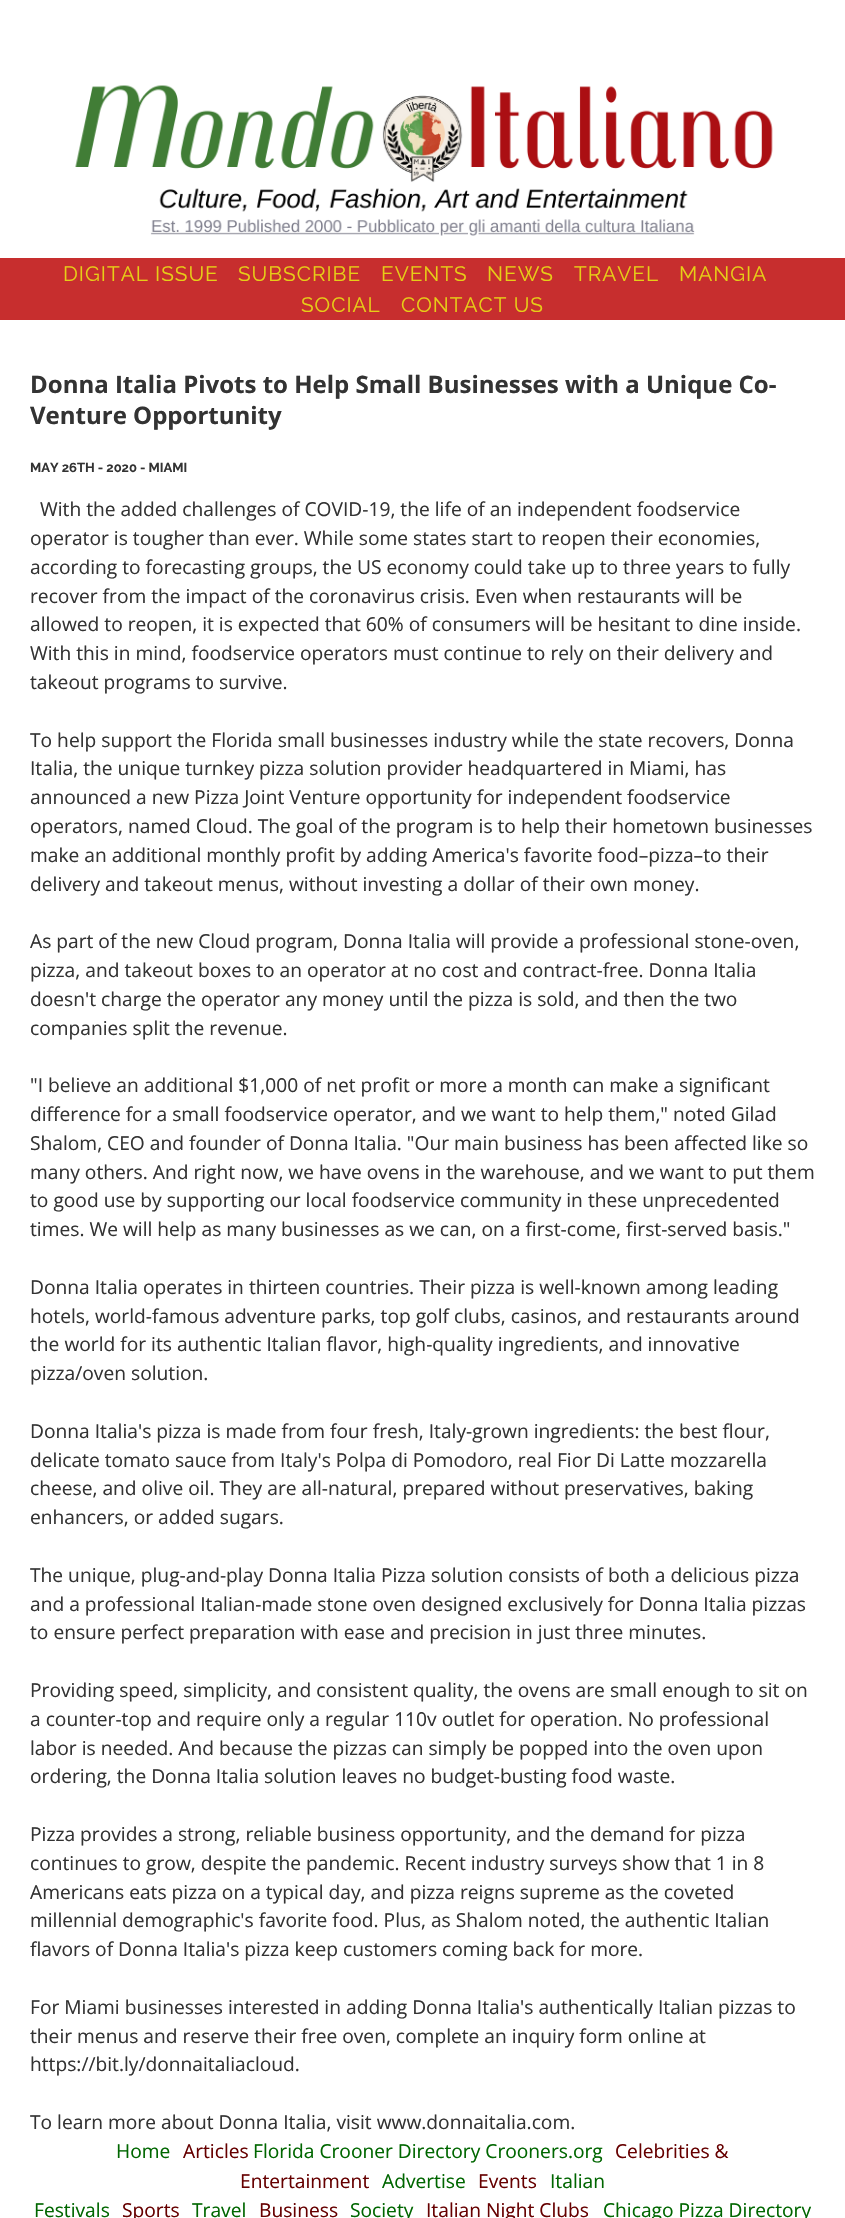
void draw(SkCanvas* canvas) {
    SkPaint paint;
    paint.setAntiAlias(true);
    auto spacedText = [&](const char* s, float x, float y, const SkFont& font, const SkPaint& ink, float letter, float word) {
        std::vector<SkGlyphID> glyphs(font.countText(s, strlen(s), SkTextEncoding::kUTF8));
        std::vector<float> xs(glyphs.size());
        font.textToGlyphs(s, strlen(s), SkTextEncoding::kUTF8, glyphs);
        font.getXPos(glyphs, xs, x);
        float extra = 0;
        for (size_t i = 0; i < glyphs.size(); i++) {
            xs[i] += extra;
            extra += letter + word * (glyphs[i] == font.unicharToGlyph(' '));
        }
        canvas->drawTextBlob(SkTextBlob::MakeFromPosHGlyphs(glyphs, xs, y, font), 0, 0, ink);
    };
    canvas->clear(0xFFFFFFFF);
    canvas->drawImageRect(SkImages::DeferredFromEncodedData(SkData::MakeFromFileName("img1.png")), SkRect::MakeXYWH(75, 85, 698, 151), SkSamplingOptions());
    paint.setColor(0xFFC72E2E);
    canvas->drawRect(SkRect::MakeXYWH(0, 258, 845, 62), paint);
    SkFont font1(fontMgr->matchFamilyStyle("Raleway", SkFontStyle::Normal()), 20.75f);
    font1.setSubpixel(true);
    paint.setColor(0xFFE6CE17);
    spacedText("DIGITAL ISSUE", 63, 281, font1, paint, 1, 0);
    spacedText("SUBSCRIBE", 238, 281, font1, paint, 1, 0);
    spacedText("EVENTS", 381, 281, font1, paint, 1, 0);
    spacedText("NEWS", 487, 281, font1, paint, 1, 0);
    spacedText("TRAVEL", 574, 281, font1, paint, 1, 0);
    spacedText("MANGIA", 679, 281, font1, paint, 1, 0);
    spacedText("SOCIAL", 301, 312, font1, paint, 1, 0);
    spacedText("CONTACT US", 401, 312, font1, paint, 1, 0);
    SkFont font2(fontMgr->matchFamilyStyle("Open Sans", SkFontStyle::Bold()), 24);
    font2.setSubpixel(true);
    paint.setColor(0xFF333333);
    canvas->drawString("Donna Italia Pivots to Help Small Businesses with a Unique Co-", 30, 393, font2, paint);
    canvas->drawString("Venture Opportunity", 30, 424, font2, paint);
    SkFont font3(fontMgr->matchFamilyStyle("Raleway", SkFontStyle::Bold()), 13);
    font3.setSubpixel(true);
    canvas->drawString("MAY 26TH - 2020 - MIAMI", 30, 472, font3, paint);
    SkFont font4(fontMgr->matchFamilyStyle("Open Sans", SkFontStyle::Normal()), 19.2f);
    font4.setSubpixel(true);
    canvas->drawString("With the added challenges of COVID-19, the life of an independent foodservice", 40, 516, font4, paint);
    canvas->drawString("operator is tougher than ever. While some states start to reopen their economies,", 30, 545, font4, paint);
    canvas->drawString("according to forecasting groups, the US economy could take up to three years to fully", 30, 574, font4, paint);
    canvas->drawString("recover from the impact of the coronavirus crisis. Even when restaurants will be", 30, 603, font4, paint);
    canvas->drawString("allowed to reopen, it is expected that 60% of consumers will be hesitant to dine inside.", 30, 631, font4, paint);
    canvas->drawString("With this in mind, foodservice operators must continue to rely on their delivery and", 30, 660, font4, paint);
    canvas->drawString("takeout programs to survive.", 30, 689, font4, paint);
    canvas->drawString("To help support the Florida small businesses industry while the state recovers, Donna", 30, 747, font4, paint);
    canvas->drawString("Italia, the unique turnkey pizza solution provider headquartered in Miami, has", 30, 775, font4, paint);
    canvas->drawString("announced a new Pizza Joint Venture opportunity for independent foodservice", 30, 804, font4, paint);
    canvas->drawString("operators, named Cloud. The goal of the program is to help their hometown businesses", 30, 833, font4, paint);
    canvas->drawString("make an additional monthly profit by adding America's favorite food–pizza–to their", 30, 862, font4, paint);
    canvas->drawString("delivery and takeout menus, without investing a dollar of their own money.", 30, 891, font4, paint);
    canvas->drawString("As part of the new Cloud program, Donna Italia will provide a professional stone-oven,", 30, 948, font4, paint);
    canvas->drawString("pizza, and takeout boxes to an operator at no cost and contract-free. Donna Italia", 30, 977, font4, paint);
    canvas->drawString("doesn't charge the operator any money until the pizza is sold, and then the two", 30, 1006, font4, paint);
    canvas->drawString("companies split the revenue.", 30, 1035, font4, paint);
    canvas->drawString("\"I believe an additional $1,000 of net profit or more a month can make a significant", 30, 1092, font4, paint);
    canvas->drawString("difference for a small foodservice operator, and we want to help them,\" noted Gilad", 30, 1121, font4, paint);
    canvas->drawString("Shalom, CEO and founder of Donna Italia. \"Our main business has been affected like so", 30, 1150, font4, paint);
    canvas->drawString("many others. And right now, we have ovens in the warehouse, and we want to put them", 30, 1179, font4, paint);
    canvas->drawString("to good use by supporting our local foodservice community in these unprecedented", 30, 1207, font4, paint);
    canvas->drawString("times. We will help as many businesses as we can, on a first-come, first-served basis.\"", 30, 1236, font4, paint);
    canvas->drawString("Donna Italia operates in thirteen countries. Their pizza is well-known among leading", 30, 1294, font4, paint);
    canvas->drawString("hotels, world-famous adventure parks, top golf clubs, casinos, and restaurants around", 30, 1323, font4, paint);
    canvas->drawString("the world for its authentic Italian flavor, high-quality ingredients, and innovative", 30, 1351, font4, paint);
    canvas->drawString("pizza/oven solution.", 30, 1380, font4, paint);
    canvas->drawString("Donna Italia's pizza is made from four fresh, Italy-grown ingredients: the best flour,", 30, 1438, font4, paint);
    canvas->drawString("delicate tomato sauce from Italy's Polpa di Pomodoro, real Fior Di Latte mozzarella", 30, 1467, font4, paint);
    canvas->drawString("cheese, and olive oil. They are all-natural, prepared without preservatives, baking", 30, 1495, font4, paint);
    canvas->drawString("enhancers, or added sugars.", 30, 1524, font4, paint);
    canvas->drawString("The unique, plug-and-play Donna Italia Pizza solution consists of both a delicious pizza", 30, 1582, font4, paint);
    canvas->drawString("and a professional Italian-made stone oven designed exclusively for Donna Italia pizzas", 30, 1611, font4, paint);
    canvas->drawString("to ensure perfect preparation with ease and precision in just three minutes.", 30, 1639, font4, paint);
    canvas->drawString("Providing speed, simplicity, and consistent quality, the ovens are small enough to sit on", 30, 1697, font4, paint);
    canvas->drawString("a counter-top and require only a regular 110v outlet for operation. No professional", 30, 1726, font4, paint);
    canvas->drawString("labor is needed. And because the pizzas can simply be popped into the oven upon", 30, 1755, font4, paint);
    canvas->drawString("ordering, the Donna Italia solution leaves no budget-busting food waste.", 30, 1783, font4, paint);
    canvas->drawString("Pizza provides a strong, reliable business opportunity, and the demand for pizza", 30, 1841, font4, paint);
    canvas->drawString("continues to grow, despite the pandemic. Recent industry surveys show that 1 in 8", 30, 1870, font4, paint);
    canvas->drawString("Americans eats pizza on a typical day, and pizza reigns supreme as the coveted", 30, 1899, font4, paint);
    canvas->drawString("millennial demographic's favorite food. Plus, as Shalom noted, the authentic Italian", 30, 1927, font4, paint);
    canvas->drawString("flavors of Donna Italia's pizza keep customers coming back for more.", 30, 1956, font4, paint);
    canvas->drawString("For Miami businesses interested in adding Donna Italia's authentically Italian pizzas to", 30, 2014, font4, paint);
    canvas->drawString("their menus and reserve their free oven, complete an inquiry form online at", 30, 2043, font4, paint);
    canvas->drawString("https://bit.ly/donnaitaliacloud.", 30, 2071, font4, paint);
    canvas->drawString("To learn more about Donna Italia, visit www.donnaitalia.com.", 30, 2129, font4, paint);
    paint.setColor(0xFF006600);
    canvas->drawString("Home", 116, 2158, font4, paint);
    paint.setColor(0xFF660000);
    canvas->drawString("Articles", 183, 2158, font4, paint);
    paint.setColor(0xFF006600);
    canvas->drawString("Florida Crooner Directory Crooners.org", 253, 2158, font4, paint);
    paint.setColor(0xFF660000);
    canvas->drawString("Celebrities &", 615, 2158, font4, paint);
    canvas->drawString("Entertainment", 240, 2188, font4, paint);
    paint.setColor(0xFF006600);
    canvas->drawString("Advertise", 382, 2188, font4, paint);
    paint.setColor(0xFF660000);
    canvas->drawString("Events", 478, 2188, font4, paint);
    paint.setColor(0xFF006600);
    canvas->drawString("Italian", 550, 2188, font4, paint);
    canvas->drawString("Festivals", 34, 2217, font4, paint);
    paint.setColor(0xFF660000);
    canvas->drawString("Sports", 122, 2217, font4, paint);
    paint.setColor(0xFF006600);
    canvas->drawString("Travel", 192, 2217, font4, paint);
    paint.setColor(0xFF660000);
    canvas->drawString("Business", 259, 2217, font4, paint);
    paint.setColor(0xFF006600);
    canvas->drawString("Society", 350, 2217, font4, paint);
    paint.setColor(0xFF660000);
    canvas->drawString("Italian Night Clubs", 426, 2217, font4, paint);
    paint.setColor(0xFF006600);
    canvas->drawString("Chicago Pizza Directory", 603, 2217, font4, paint);
}
